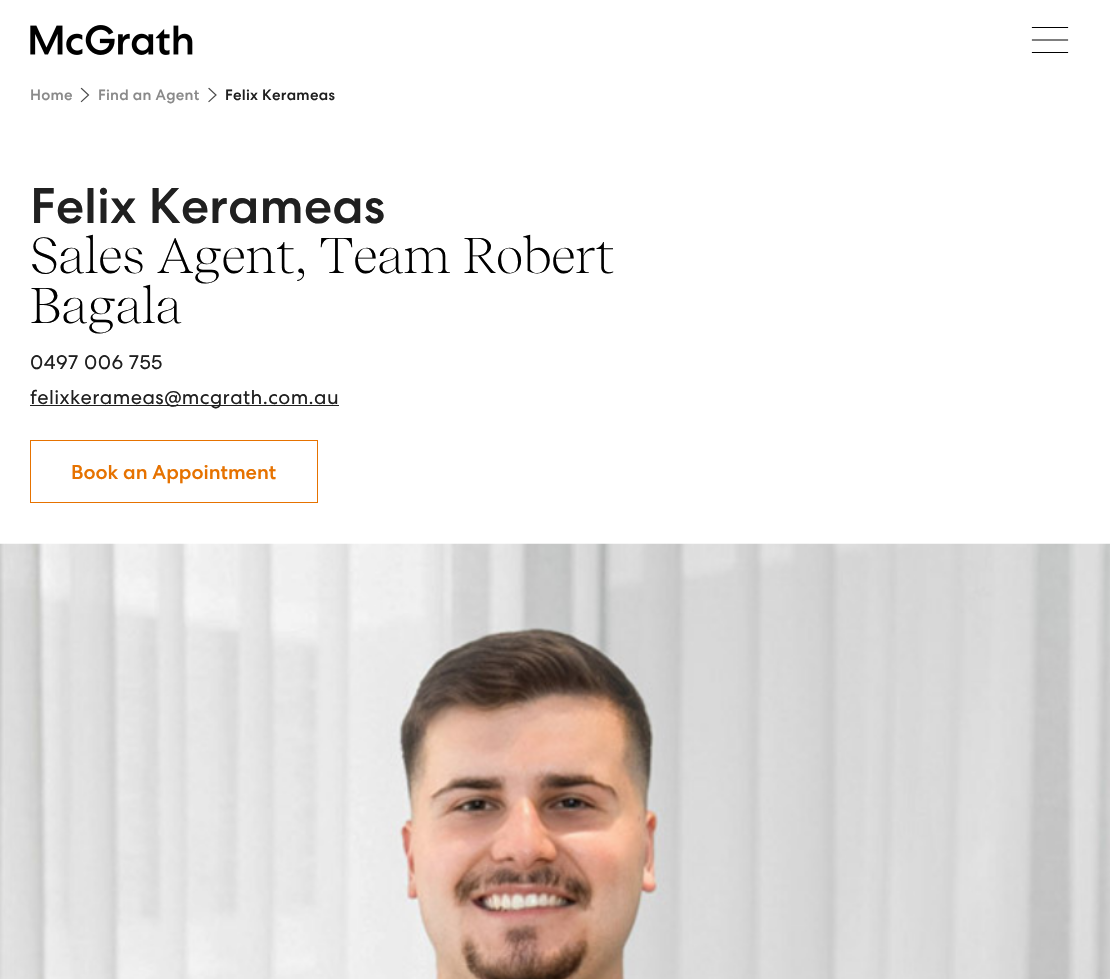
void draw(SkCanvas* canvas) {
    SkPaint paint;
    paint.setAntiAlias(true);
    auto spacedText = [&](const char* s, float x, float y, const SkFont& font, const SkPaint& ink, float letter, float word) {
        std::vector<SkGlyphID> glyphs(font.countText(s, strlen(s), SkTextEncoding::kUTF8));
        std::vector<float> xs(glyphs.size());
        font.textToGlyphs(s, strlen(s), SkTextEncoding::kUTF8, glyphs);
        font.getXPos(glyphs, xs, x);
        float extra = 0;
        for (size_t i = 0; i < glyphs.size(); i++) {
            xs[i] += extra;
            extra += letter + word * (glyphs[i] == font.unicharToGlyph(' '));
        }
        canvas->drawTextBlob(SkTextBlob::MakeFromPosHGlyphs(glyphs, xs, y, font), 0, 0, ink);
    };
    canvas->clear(0xFFFFFFFF);
    canvas->drawImageRect(SkImages::DeferredFromEncodedData(SkData::MakeFromFileName("img1.png")), SkRect::MakeXYWH(30, 25, 163, 30), SkSamplingOptions());
    paint.setStyle(SkPaint::kStroke_Style);
    paint.setStrokeWidth(1.2f);
    paint.setStrokeCap(SkPaint::kSquare_Cap);
    paint.setStrokeJoin(SkPaint::kRound_Join);
    paint.setColor(0xFF000000);
    canvas->drawPath(SkPathBuilder().moveTo(1032.5f, 52.5f).lineTo(1067.5f, 52.5f).moveTo(1032.5f, 40).lineTo(1067.5f, 40).moveTo(1032.5f, 27.5f).lineTo(1067.5f, 27.5f).detach(), paint);
    SkFont font1(fontMgr->matchFamilyStyle("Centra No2", SkFontStyle(500, SkFontStyle::kNormal_Width, SkFontStyle::kUpright_Slant)), 15);
    font1.setSubpixel(true);
    paint.setStyle(SkPaint::kFill_Style);
    paint.setColor(0xFF8A8A8A);
    spacedText("Home", 30, 100, font1, paint, 0.25f, 0);
    paint.setStyle(SkPaint::kStroke_Style);
    paint.setStrokeJoin(SkPaint::kMiter_Join);
    paint.setColor(0xFF4A4A4A);
    canvas->drawPath(SkPathBuilder().moveTo(81.5f, 88.5f).lineTo(88.5f, 95).lineTo(81.5f, 101.5f).detach(), paint);
    paint.setStyle(SkPaint::kFill_Style);
    paint.setColor(0xFF8A8A8A);
    spacedText("Find an Agent", 98, 100, font1, paint, 0.25f, 0);
    paint.setStyle(SkPaint::kStroke_Style);
    paint.setColor(0xFF4A4A4A);
    canvas->drawPath(SkPathBuilder().moveTo(209, 88.5f).lineTo(216, 95).lineTo(209, 101.5f).detach(), paint);
    paint.setStyle(SkPaint::kFill_Style);
    paint.setColor(0xFF202020);
    spacedText("Felix Kerameas", 225, 100, font1, paint, 0.25f, 0);
    SkFont font2(fontMgr->matchFamilyStyle("Centra No2", SkFontStyle(500, SkFontStyle::kNormal_Width, SkFontStyle::kUpright_Slant)), 50);
    font2.setSubpixel(true);
    canvas->drawString("Felix Kerameas", 30, 223, font2, paint);
    SkFont font3(fontMgr->matchFamilyStyle("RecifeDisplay", SkFontStyle(300, SkFontStyle::kNormal_Width, SkFontStyle::kUpright_Slant)), 50);
    font3.setSubpixel(true);
    paint.setColor(0xFF000000);
    canvas->drawString("Sales Agent, Team Robert", 30, 273, font3, paint);
    canvas->drawString("Bagala", 30, 323, font3, paint);
    SkFont font4(fontMgr->matchFamilyStyle("Centra No2", SkFontStyle::Normal()), 20);
    font4.setSubpixel(true);
    paint.setColor(0xFF202020);
    spacedText("0497 006 755", 30, 369, font4, paint, 0.4f, 0);
    canvas->drawRect(SkRect::MakeXYWH(30, 405, 309, 1), paint);
    spacedText("felixkerameas@mcgrath.com.au", 30, 404, font4, paint, 0.4f, 0);
    paint.setStyle(SkPaint::kStroke_Style);
    paint.setStrokeWidth(1);
    paint.setStrokeCap(SkPaint::kButt_Cap);
    paint.setColor(0xFFE67200);
    canvas->drawRect(SkRect::MakeXYWH(30.5f, 440.5f, 287, 62), paint);
    SkFont font5(fontMgr->matchFamilyStyle("Centra No2", SkFontStyle(500, SkFontStyle::kNormal_Width, SkFontStyle::kUpright_Slant)), 20);
    font5.setSubpixel(true);
    paint.setStyle(SkPaint::kFill_Style);
    canvas->drawString("Book an Appointment", 71, 479, font5, paint);
    canvas->drawImageRect(SkImages::DeferredFromEncodedData(SkData::MakeFromFileName("img2.png")), SkRect::MakeXYWH(0, 543, 1110, 436), SkSamplingOptions());
}
